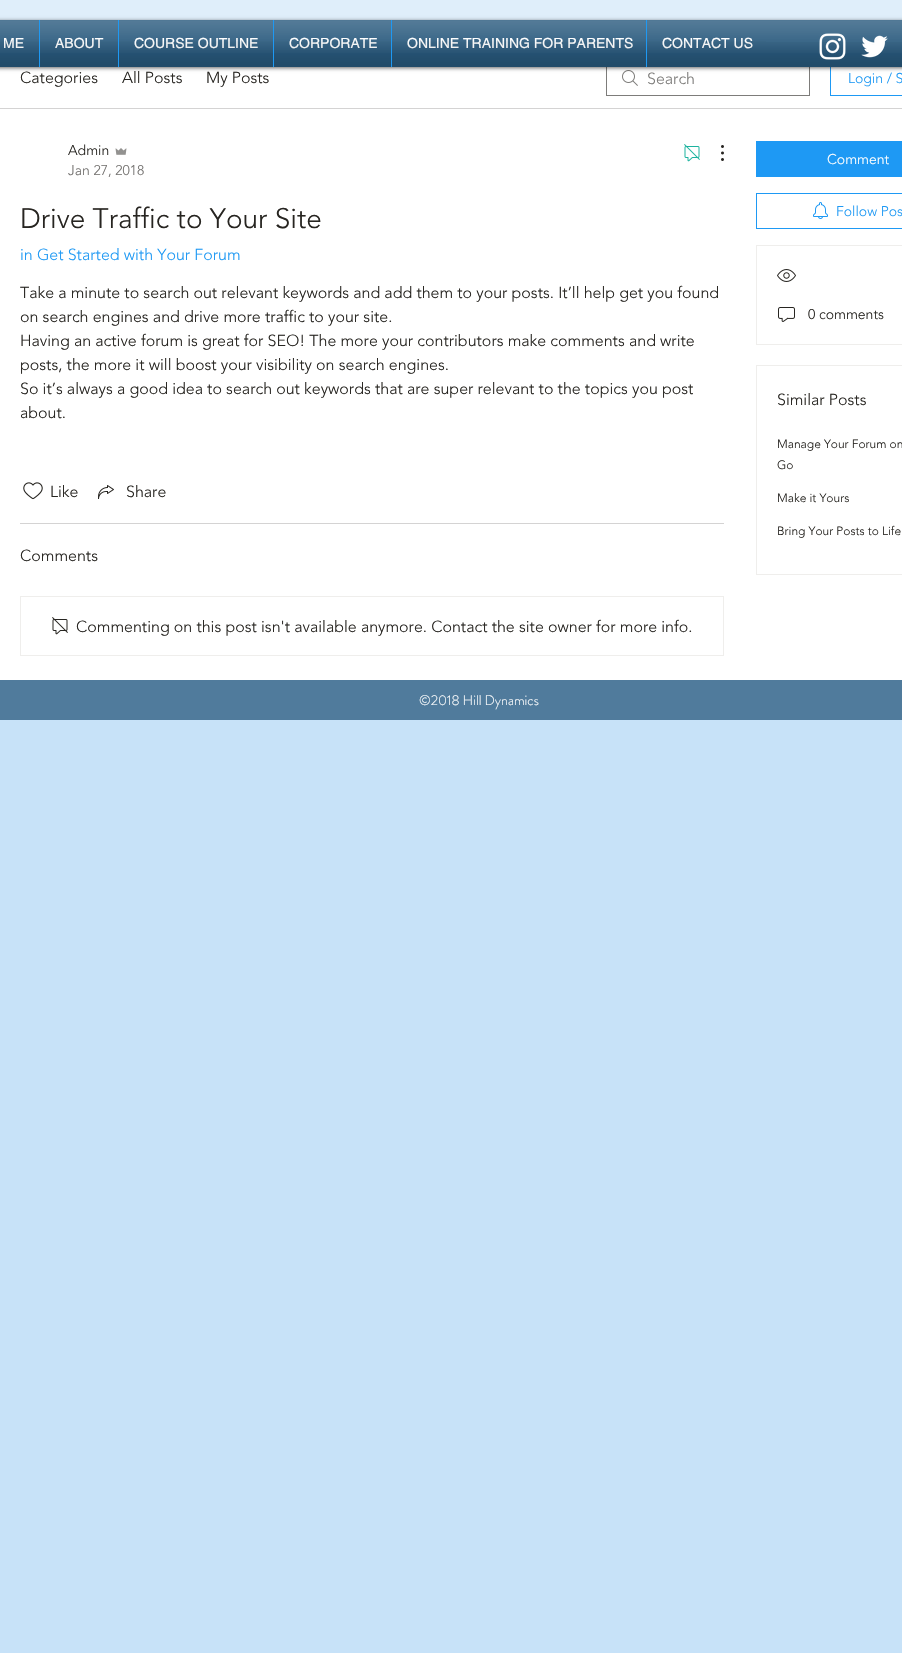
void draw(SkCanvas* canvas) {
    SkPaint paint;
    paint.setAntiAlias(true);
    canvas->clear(0xFFC7E2F8);
    paint.setColor(0xFFDFEEFA);
    canvas->drawRect(SkRect::MakeXYWH(0, 0, 902, 20), paint);
    paint.setColor(0xFFFFFFFF);
    canvas->drawRect(SkRect::MakeXYWH(0, 67, 902, 613), paint);
    canvas->drawImageRect(SkImages::DeferredFromEncodedData(SkData::MakeFromFileName("img17.png")), SkRect::MakeXYWH(622, 70, 16, 16), SkSamplingOptions());
    paint.setStyle(SkPaint::kStroke_Style);
    paint.setStrokeWidth(1);
    paint.setColor(0xFF7D7C7A);
    canvas->drawRect(SkRect::MakeXYWH(606.5f, 60.5f, 203, 35), paint);
    paint.setColor(0xFF1E99F4);
    canvas->drawRect(SkRect::MakeXYWH(830.5f, 60.5f, 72, 35), paint);
    paint.setStyle(SkPaint::kFill_Style);
    paint.setColor(0x99000000);
    paint.setMaskFilter(SkMaskFilter::MakeBlur(kNormal_SkBlurStyle, 2));
    canvas->drawRect(SkRect::MakeXYWH(-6, 21, 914, 47), paint);
    paint.setMaskFilter(nullptr);
    paint.setColor(0xFF28597D);
    canvas->drawRect(SkRect::MakeXYWH(647, 20, 255, 47), paint);
    canvas->drawImageRect(SkImages::DeferredFromEncodedData(SkData::MakeFromFileName("img1.png")), SkRect::MakeXYWH(766, 20, 136, 33), SkSamplingOptions());
    canvas->drawImageRect(SkImages::DeferredFromEncodedData(SkData::MakeFromFileName("img2.png")), SkRect::MakeXYWH(766, 42, 136, 25), SkSamplingOptions());
    canvas->drawRect(SkRect::MakeXYWH(0, 20, 39, 47), paint);
    SkFont font1(fontMgr->matchFamilyStyle("helvetica", SkFontStyle::Normal()), 14);
    font1.setSubpixel(true);
    paint.setColor(0xFFFFFFFF);
    canvas->drawString("ME", 3, 48, font1, paint);
    canvas->drawImageRect(SkImages::DeferredFromEncodedData(SkData::MakeFromFileName("img3.png")), SkRect::MakeXYWH(0, 20, 39, 33), SkSamplingOptions());
    canvas->drawImageRect(SkImages::DeferredFromEncodedData(SkData::MakeFromFileName("img4.png")), SkRect::MakeXYWH(0, 41, 39, 26), SkSamplingOptions());
    paint.setColor(0xFF28597D);
    canvas->drawRect(SkRect::MakeXYWH(40, 20, 78, 47), paint);
    paint.setColor(0xFF1E99F4);
    canvas->drawRect(SkRect::MakeXYWH(39, 20, 1, 47), paint);
    paint.setColor(0xFFFFFFFF);
    canvas->drawString("ABOUT", 55, 48, font1, paint);
    canvas->drawImageRect(SkImages::DeferredFromEncodedData(SkData::MakeFromFileName("img5.png")), SkRect::MakeXYWH(40, 20, 78, 33), SkSamplingOptions());
    canvas->drawImageRect(SkImages::DeferredFromEncodedData(SkData::MakeFromFileName("img6.png")), SkRect::MakeXYWH(40, 41, 78, 26), SkSamplingOptions());
    paint.setColor(0xFF28597D);
    canvas->drawRect(SkRect::MakeXYWH(119, 20, 154, 47), paint);
    paint.setColor(0xFF1E99F4);
    canvas->drawRect(SkRect::MakeXYWH(118, 20, 1, 47), paint);
    paint.setColor(0xFFFFFFFF);
    canvas->drawString("COURSE OUTLINE", 134, 48, font1, paint);
    canvas->drawImageRect(SkImages::DeferredFromEncodedData(SkData::MakeFromFileName("img7.png")), SkRect::MakeXYWH(119, 20, 154, 33), SkSamplingOptions());
    canvas->drawImageRect(SkImages::DeferredFromEncodedData(SkData::MakeFromFileName("img8.png")), SkRect::MakeXYWH(119, 41, 154, 26), SkSamplingOptions());
    paint.setColor(0xFF28597D);
    canvas->drawRect(SkRect::MakeXYWH(274, 20, 117, 47), paint);
    paint.setColor(0xFF1E99F4);
    canvas->drawRect(SkRect::MakeXYWH(273, 20, 1, 47), paint);
    paint.setColor(0xFFFFFFFF);
    canvas->drawString("CORPORATE", 289, 48, font1, paint);
    canvas->drawImageRect(SkImages::DeferredFromEncodedData(SkData::MakeFromFileName("img9.png")), SkRect::MakeXYWH(274, 20, 117, 33), SkSamplingOptions());
    canvas->drawImageRect(SkImages::DeferredFromEncodedData(SkData::MakeFromFileName("img10.png")), SkRect::MakeXYWH(274, 41, 117, 26), SkSamplingOptions());
    paint.setColor(0xFF28597D);
    canvas->drawRect(SkRect::MakeXYWH(392, 20, 254, 47), paint);
    paint.setColor(0xFF1E99F4);
    canvas->drawRect(SkRect::MakeXYWH(391, 20, 1, 47), paint);
    paint.setColor(0xFFFFFFFF);
    canvas->drawString("ONLINE TRAINING FOR PARENTS", 407, 48, font1, paint);
    canvas->drawImageRect(SkImages::DeferredFromEncodedData(SkData::MakeFromFileName("img11.png")), SkRect::MakeXYWH(392, 20, 254, 33), SkSamplingOptions());
    canvas->drawImageRect(SkImages::DeferredFromEncodedData(SkData::MakeFromFileName("img12.png")), SkRect::MakeXYWH(392, 41, 254, 26), SkSamplingOptions());
    paint.setColor(0xFF1E99F4);
    canvas->drawRect(SkRect::MakeXYWH(646, 20, 1, 47), paint);
    paint.setColor(0xFFFFFFFF);
    canvas->drawString("CONTACT US", 662, 48, font1, paint);
    canvas->drawImageRect(SkImages::DeferredFromEncodedData(SkData::MakeFromFileName("img13.png")), SkRect::MakeXYWH(647, 20, 119, 33), SkSamplingOptions());
    canvas->drawImageRect(SkImages::DeferredFromEncodedData(SkData::MakeFromFileName("img14.png")), SkRect::MakeXYWH(647, 41, 119, 26), SkSamplingOptions());
    canvas->drawImageRect(SkImages::DeferredFromEncodedData(SkData::MakeFromFileName("img15.png")), SkRect::MakeXYWH(819, 33, 27, 27), SkSamplingOptions());
    canvas->drawImageRect(SkImages::DeferredFromEncodedData(SkData::MakeFromFileName("img16.png")), SkRect::MakeXYWH(861, 35, 27, 23), SkSamplingOptions());
    paint.setColor(0xFFD4D3D3);
    canvas->drawRect(SkRect::MakeXYWH(0, 108, 902, 1), paint);
    SkFont font2(fontMgr->matchFamilyStyle("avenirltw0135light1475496", SkFontStyle(300, SkFontStyle::kNormal_Width, SkFontStyle::kUpright_Slant)), 16);
    font2.setSubpixel(true);
    paint.setColor(0xFF272521);
    canvas->drawString("Categories", 20, 83, font2, paint);
    canvas->drawString("All Posts", 122, 83, font2, paint);
    canvas->drawString("My Posts", 206, 83, font2, paint);
    paint.setColor(0xFF7D7C7A);
    canvas->drawString("Search", 647, 84, font2, paint);
    SkFont font3(fontMgr->matchFamilyStyle("avenirltw0135light1475496", SkFontStyle(300, SkFontStyle::kNormal_Width, SkFontStyle::kUpright_Slant)), 14);
    font3.setSubpixel(true);
    paint.setColor(0xFF1E99F4);
    canvas->drawString("Login / S", 848, 83, font3, paint);
    paint.setColor(0xFF272521);
    canvas->drawString("Admin", 68, 155, font3, paint);
    canvas->drawImageRect(SkImages::DeferredFromEncodedData(SkData::MakeFromFileName("img18.png")), SkRect::MakeXYWH(115, 148, 12, 7), SkSamplingOptions());
    paint.setColor(0xFF757371);
    canvas->drawString("Jan 27, 2018", 68, 175, font3, paint);
    canvas->drawImageRect(SkImages::DeferredFromEncodedData(SkData::MakeFromFileName("img19.png")), SkRect::MakeXYWH(684, 144, 16, 18), SkSamplingOptions());
    canvas->drawImageRect(SkImages::DeferredFromEncodedData(SkData::MakeFromFileName("img20.png")), SkRect::MakeXYWH(721, 145, 3, 16), SkSamplingOptions());
    SkFont font4(fontMgr->matchFamilyStyle("avenirltw0135light1475496", SkFontStyle(300, SkFontStyle::kNormal_Width, SkFontStyle::kUpright_Slant)), 28);
    font4.setSubpixel(true);
    paint.setColor(0xFF272521);
    canvas->drawString("Drive Traffic to Your Site", 20, 228, font4, paint);
    paint.setColor(0xFF1E99F4);
    canvas->drawString("in Get Started with Your Forum", 20, 260, font2, paint);
    paint.setColor(0xFF272521);
    canvas->drawString("Take a minute to search out relevant keywords and add them to your posts. It’ll help get you found", 20, 298, font2, paint);
    canvas->drawString("on search engines and drive more traffic to your site.", 20, 322, font2, paint);
    canvas->drawString("Having an active forum is great for SEO! The more your contributors make comments and write", 20, 346, font2, paint);
    canvas->drawString("posts, the more it will boost your visibility on search engines.", 20, 370, font2, paint);
    canvas->drawString("So it’s always a good idea to search out keywords that are super relevant to the topics you post", 20, 394, font2, paint);
    canvas->drawString("about.", 20, 418, font2, paint);
    canvas->drawImageRect(SkImages::DeferredFromEncodedData(SkData::MakeFromFileName("img21.png")), SkRect::MakeXYWH(23, 482, 20, 18), SkSamplingOptions());
    canvas->drawString("Like", 50, 497, font2, paint);
    canvas->drawImageRect(SkImages::DeferredFromEncodedData(SkData::MakeFromFileName("img22.png")), SkRect::MakeXYWH(98, 485, 16, 14), SkSamplingOptions());
    canvas->drawString("Share", 126, 497, font2, paint);
    paint.setColor(0xFFD4D3D3);
    canvas->drawRect(SkRect::MakeXYWH(20, 523, 704, 1), paint);
    paint.setColor(0xFF272521);
    canvas->drawString("Comments", 20, 561, font2, paint);
    paint.setStyle(SkPaint::kStroke_Style);
    paint.setColor(0xFFEFEEEC);
    canvas->drawRect(SkRect::MakeXYWH(20.5f, 596.5f, 703, 59), paint);
    canvas->drawImageRect(SkImages::DeferredFromEncodedData(SkData::MakeFromFileName("img23.png")), SkRect::MakeXYWH(52, 617, 16, 18), SkSamplingOptions());
    paint.setStyle(SkPaint::kFill_Style);
    paint.setColor(0xFF272521);
    canvas->drawString("Commenting on this post isn't available anymore. Contact the site owner for more info.", 76, 632, font2, paint);
    paint.setColor(0xFF1E99F4);
    canvas->drawRect(SkRect::MakeXYWH(756, 141, 146, 36), paint);
    paint.setColor(0xFFFFFFFF);
    canvas->drawString("Comment", 827, 164, font3, paint);
    paint.setStyle(SkPaint::kStroke_Style);
    paint.setColor(0xFF1E99F4);
    canvas->drawRect(SkRect::MakeXYWH(756.5f, 193.5f, 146, 35), paint);
    canvas->drawImageRect(SkImages::DeferredFromEncodedData(SkData::MakeFromFileName("img24.png")), SkRect::MakeXYWH(813, 202, 15, 17), SkSamplingOptions());
    paint.setStyle(SkPaint::kFill_Style);
    canvas->drawString("Follow Pos", 836, 216, font3, paint);
    paint.setStyle(SkPaint::kStroke_Style);
    paint.setColor(0xFFEFEEEC);
    canvas->drawRect(SkRect::MakeXYWH(756.5f, 245.5f, 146, 99), paint);
    canvas->drawImageRect(SkImages::DeferredFromEncodedData(SkData::MakeFromFileName("img25.png")), SkRect::MakeXYWH(777, 269, 19, 13), SkSamplingOptions());
    canvas->drawImageRect(SkImages::DeferredFromEncodedData(SkData::MakeFromFileName("img26.png")), SkRect::MakeXYWH(778, 307, 17, 15), SkSamplingOptions());
    paint.setStyle(SkPaint::kFill_Style);
    paint.setColor(0xFF272521);
    canvas->drawString("0 comments", 808, 319, font3, paint);
    paint.setStyle(SkPaint::kStroke_Style);
    paint.setColor(0xFFEFEEEC);
    canvas->drawRect(SkRect::MakeXYWH(756.5f, 365.5f, 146, 209), paint);
    paint.setStyle(SkPaint::kFill_Style);
    paint.setColor(0xFF272521);
    canvas->drawString("Similar Posts", 777, 405, font2, paint);
    SkFont font5(fontMgr->matchFamilyStyle("avenirltw0135light1475496", SkFontStyle(300, SkFontStyle::kNormal_Width, SkFontStyle::kUpright_Slant)), 12);
    font5.setSubpixel(true);
    canvas->drawString("Manage Your Forum on", 777, 448, font5, paint);
    canvas->drawString("Go", 777, 469, font5, paint);
    canvas->drawString("Make it Yours", 777, 502, font5, paint);
    canvas->drawString("Bring Your Posts to Life", 777, 535, font5, paint);
    paint.setColor(0xFF507B9C);
    canvas->drawRect(SkRect::MakeXYWH(0, 680, 902, 40), paint);
    SkFont font6(fontMgr->matchFamilyStyle("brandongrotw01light", SkFontStyle(300, SkFontStyle::kNormal_Width, SkFontStyle::kUpright_Slant)), 14);
    font6.setSubpixel(true);
    paint.setColor(0xFFFFFFFF);
    canvas->drawString("©2018 Hill Dynamics", 419, 705, font6, paint);
}
